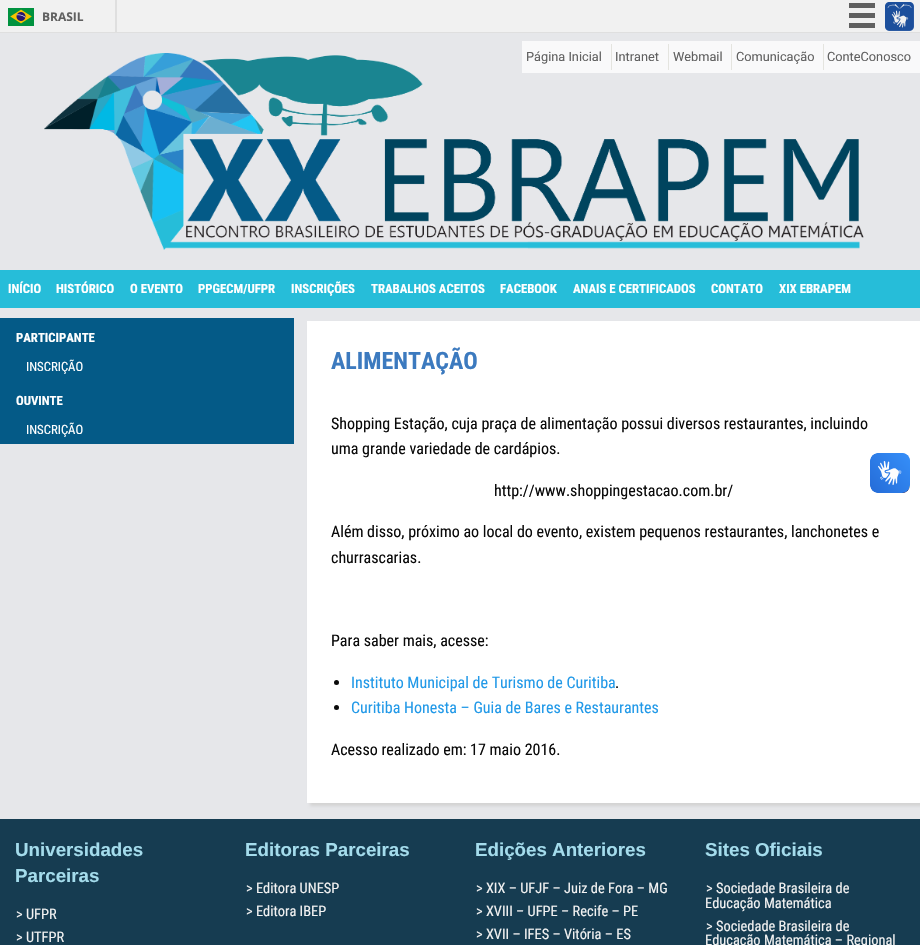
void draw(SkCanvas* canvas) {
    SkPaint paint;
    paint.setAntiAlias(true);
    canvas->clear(0xFFE6E7EA);
    paint.setColor(0xFFF1F1F1);
    canvas->drawRect(SkRect::MakeXYWH(0, 0, 920, 32), paint);
    paint.setColor(0xFFDFDFDF);
    canvas->drawRect(SkRect::MakeXYWH(0, 32, 920, 1), paint);
    canvas->drawRect(SkRect::MakeXYWH(115, 0, 2, 32), paint);
    canvas->drawImageRect(SkImages::DeferredFromEncodedData(SkData::MakeFromFileName("img1.png")), SkRect::MakeXYWH(8, 8, 26, 18), SkSamplingOptions());
    SkFont font1(fontMgr->matchFamilyStyle("Open Sans", SkFontStyle::Bold()), 12);
    font1.setSubpixel(true);
    paint.setColor(0xFF606060);
    canvas->drawString("BRASIL", 42, 21, font1, paint);
    canvas->drawRect(SkRect::MakeXYWH(849, 3, 26, 5), paint);
    canvas->drawRect(SkRect::MakeXYWH(849, 13, 26, 5), paint);
    canvas->drawRect(SkRect::MakeXYWH(849, 23, 26, 5), paint);
    canvas->drawImageRect(SkImages::DeferredFromEncodedData(SkData::MakeFromFileName("img2.png")), SkRect::MakeXYWH(885, 2, 29, 29), SkSamplingOptions());
    canvas->drawImageRect(SkImages::DeferredFromEncodedData(SkData::MakeFromFileName("img3.png")), SkRect::MakeXYWH(44, 53, 820, 197), SkSamplingOptions());
    paint.setColor(0xFFF9F9FA);
    canvas->drawRect(SkRect::MakeXYWH(522, 41, 398, 32), paint);
    paint.setColor(0xFFE4E4DF);
    canvas->drawRect(SkRect::MakeXYWH(611, 44, 1, 26), paint);
    SkFont font2(fontMgr->matchFamilyStyle("Roboto", SkFontStyle::Normal()), 12.75f);
    font2.setSubpixel(true);
    paint.setColor(0xFF606060);
    canvas->drawString("Página Inicial", 526, 61, font2, paint);
    paint.setColor(0xFFE4E4DF);
    canvas->drawRect(SkRect::MakeXYWH(668, 44, 1, 26), paint);
    paint.setColor(0xFF606060);
    canvas->drawString("Intranet", 615, 61, font2, paint);
    paint.setColor(0xFFE4E4DF);
    canvas->drawRect(SkRect::MakeXYWH(731, 44, 1, 26), paint);
    paint.setColor(0xFF606060);
    canvas->drawString("Webmail", 673, 61, font2, paint);
    paint.setColor(0xFFE4E4DF);
    canvas->drawRect(SkRect::MakeXYWH(823, 44, 1, 26), paint);
    paint.setColor(0xFF606060);
    canvas->drawString("Comunicação", 736, 61, font2, paint);
    canvas->drawString("ConteConosco", 827, 61, font2, paint);
    paint.setColor(0xFF26BDD9);
    canvas->drawRect(SkRect::MakeXYWH(0, 270, 920, 38), paint);
    SkFont font3(fontMgr->matchFamilyStyle("Roboto Condensed", SkFontStyle::Bold()), 12.75f);
    font3.setSubpixel(true);
    paint.setColor(0xFFFFFFFF);
    canvas->drawString("INÍCIO", 8, 293, font3, paint);
    canvas->drawString("HISTÓRICO", 56, 293, font3, paint);
    canvas->drawString("O EVENTO", 130, 293, font3, paint);
    canvas->drawString("PPGECM/UFPR", 198, 293, font3, paint);
    canvas->drawString("INSCRIÇÕES", 291, 293, font3, paint);
    canvas->drawString("TRABALHOS ACEITOS", 371, 293, font3, paint);
    canvas->drawString("FACEBOOK", 500, 293, font3, paint);
    canvas->drawString("ANAIS E CERTIFICADOS", 573, 293, font3, paint);
    canvas->drawString("CONTATO", 711, 293, font3, paint);
    canvas->drawString("XIX EBRAPEM", 779, 293, font3, paint);
    paint.setColor(0xFF045A87);
    canvas->drawRect(SkRect::MakeXYWH(0, 318, 294, 126), paint);
    paint.setColor(0xFFFFFFFF);
    canvas->drawString("PARTICIPANTE", 16, 342, font3, paint);
    SkFont font4(fontMgr->matchFamilyStyle("Roboto Condensed", SkFontStyle::Normal()), 12.75f);
    font4.setSubpixel(true);
    canvas->drawString("INSCRIÇÃO", 26, 371, font4, paint);
    canvas->drawString("OUVINTE", 16, 405, font3, paint);
    canvas->drawString("INSCRIÇÃO", 26, 434, font4, paint);
    paint.setColor(0xFFD3D3D3);
    paint.setMaskFilter(SkMaskFilter::MakeBlur(kNormal_SkBlurStyle, 1.5f));
    canvas->drawRect(SkRect::MakeXYWH(310, 324, 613, 482), paint);
    paint.setMaskFilter(nullptr);
    paint.setColor(0xFFFFFFFF);
    canvas->drawRect(SkRect::MakeXYWH(307, 321, 613, 482), paint);
    SkFont font5(fontMgr->matchFamilyStyle("Roboto Condensed", SkFontStyle::Bold()), 24);
    font5.setSubpixel(true);
    paint.setColor(0xFF3C7ABF);
    canvas->drawString("ALIMENTAÇÃO", 331, 369, font5, paint);
    SkFont font6(fontMgr->matchFamilyStyle("Roboto Condensed", SkFontStyle::Normal()), 16);
    font6.setSubpixel(true);
    paint.setColor(0xFF0A0A0A);
    canvas->drawString("Shopping Estação, cuja praça de alimentação possui diversos restaurantes, incluindo", 331, 429, font6, paint);
    canvas->drawString("uma grande variedade de cardápios.", 331, 454, font6, paint);
    canvas->drawString("http://www.shoppingestacao.com.br/", 494, 496, font6, paint);
    canvas->drawString("Além disso, próximo ao local do evento, existem pequenos restaurantes, lanchonetes e", 331, 537, font6, paint);
    canvas->drawString("churrascarias.", 331, 563, font6, paint);
    canvas->drawString("Para saber mais, acesse:", 331, 646, font6, paint);
    canvas->drawCircle(336.5f, 682.5f, 2.5f, paint);
    paint.setColor(0xFF2199E8);
    canvas->drawString("Instituto Municipal de Turismo de Curitiba", 351, 688, font6, paint);
    paint.setColor(0xFF0A0A0A);
    canvas->drawString(".", 615, 688, font6, paint);
    canvas->drawCircle(336.5f, 707.5f, 2.5f, paint);
    paint.setColor(0xFF2199E8);
    canvas->drawString("Curitiba Honesta – Guia de Bares e Restaurantes", 351, 713, font6, paint);
    paint.setColor(0xFF0A0A0A);
    canvas->drawString("Acesso realizado em: 17 maio 2016.", 331, 755, font6, paint);
    canvas->drawImageRect(SkImages::DeferredFromEncodedData(SkData::MakeFromFileName("img4.png")), SkRect::MakeXYWH(870, 453, 40, 40), SkSamplingOptions());
    canvas->drawImageRect(SkImages::DeferredFromEncodedData(SkData::MakeFromFileName("img5.png")), SkRect::MakeXYWH(870, 453, 40, 40), SkSamplingOptions());
    paint.setColor(0xFF163C51);
    canvas->drawRect(SkRect::MakeXYWH(0, 819, 920, 126), paint);
    SkFont font7(fontMgr->matchFamilyStyle("Liberation Sans", SkFontStyle::Bold()), 18.75f);
    font7.setSubpixel(true);
    paint.setColor(0xFFA4DCEC);
    canvas->drawString("Universidades", 15, 856, font7, paint);
    canvas->drawString("Parceiras", 15, 882, font7, paint);
    SkFont font8(fontMgr->matchFamilyStyle("Roboto Condensed", SkFontStyle::Normal()), 14.4f);
    font8.setSubpixel(true);
    paint.setColor(0xFFF2F2F2);
    canvas->drawString("> UFPR", 16, 919, font8, paint);
    canvas->drawString("> UTFPR", 16, 942, font8, paint);
    paint.setColor(0xFFA4DCEC);
    canvas->drawString("Editoras Parceiras", 245, 856, font7, paint);
    paint.setColor(0xFFF2F2F2);
    canvas->drawString("> Editora UNESP", 246, 893, font8, paint);
    canvas->drawString("> Editora IBEP", 246, 916, font8, paint);
    paint.setColor(0xFFA4DCEC);
    canvas->drawString("Edições Anteriores", 475, 856, font7, paint);
    paint.setColor(0xFFF2F2F2);
    canvas->drawString("> XIX – UFJF – Juiz de Fora – MG", 476, 893, font8, paint);
    canvas->drawString("> XVIII – UFPE – Recife – PE", 476, 916, font8, paint);
    canvas->drawString("> XVII – IFES – Vitória – ES", 476, 939, font8, paint);
    paint.setColor(0xFFA4DCEC);
    canvas->drawString("Sites Oficiais", 705, 856, font7, paint);
    paint.setColor(0xFFF2F2F2);
    canvas->drawString("> Sociedade Brasileira de", 706, 893, font8, paint);
    canvas->drawString("Educação Matemática", 705, 908, font8, paint);
    canvas->drawString("> Sociedade Brasileira de", 706, 931, font8, paint);
    canvas->drawString("Educação Matemática – Regional", 705, 945, font8, paint);
}
